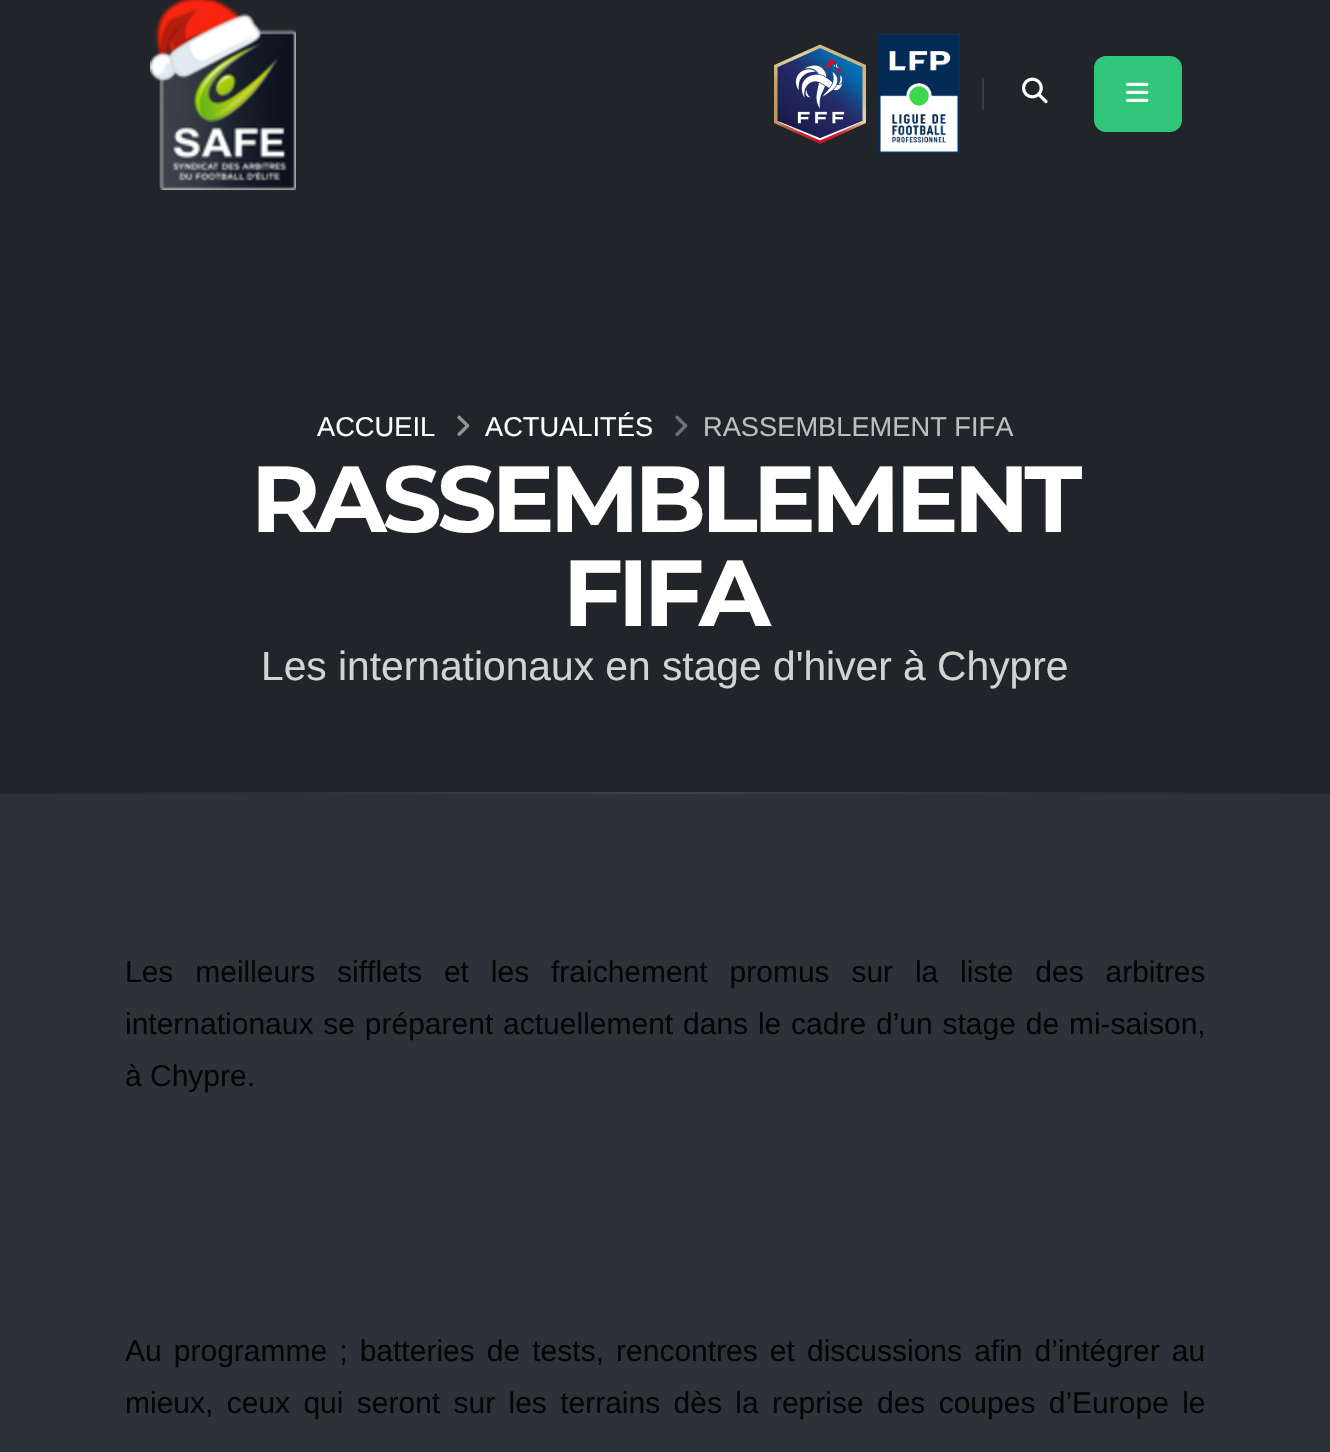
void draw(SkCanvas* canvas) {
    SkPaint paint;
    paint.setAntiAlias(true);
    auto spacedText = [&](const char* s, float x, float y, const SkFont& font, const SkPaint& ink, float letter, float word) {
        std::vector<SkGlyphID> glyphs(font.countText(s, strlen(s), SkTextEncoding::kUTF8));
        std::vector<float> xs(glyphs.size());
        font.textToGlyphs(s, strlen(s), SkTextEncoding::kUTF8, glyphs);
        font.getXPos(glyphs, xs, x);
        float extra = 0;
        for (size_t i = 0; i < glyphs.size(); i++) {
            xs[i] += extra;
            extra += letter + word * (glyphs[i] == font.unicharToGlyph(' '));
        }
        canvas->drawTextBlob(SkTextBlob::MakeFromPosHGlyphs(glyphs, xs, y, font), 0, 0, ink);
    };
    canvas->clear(0xFF212529);
    canvas->drawImageRect(SkImages::DeferredFromEncodedData(SkData::MakeFromFileName("img1.png")), SkRect::MakeXYWH(150, 0, 146, 190), SkSamplingOptions());
    canvas->drawImageRect(SkImages::DeferredFromEncodedData(SkData::MakeFromFileName("img2.png")), SkRect::MakeXYWH(774, 44, 92, 100), SkSamplingOptions());
    canvas->drawImageRect(SkImages::DeferredFromEncodedData(SkData::MakeFromFileName("img3.png")), SkRect::MakeXYWH(878, 34, 82, 120), SkSamplingOptions());
    paint.setColor(0xFF373B3E);
    canvas->drawRect(SkRect::MakeXYWH(982, 78, 2, 32), paint);
    canvas->drawImageRect(SkImages::DeferredFromEncodedData(SkData::MakeFromFileName("img4.png")), SkRect::MakeXYWH(1022, 77, 26, 27), SkSamplingOptions());
    paint.setColor(0xFF30C57A);
    canvas->drawRoundRect(SkRect::MakeXYWH(1094, 56, 88, 76), 12, 12, paint);
    canvas->drawImageRect(SkImages::DeferredFromEncodedData(SkData::MakeFromFileName("img5.png")), SkRect::MakeXYWH(1126, 82, 23, 20), SkSamplingOptions());
    SkFont font1(fontMgr->matchFamilyStyle("Liberation Sans", SkFontStyle::Normal()), 27.25f);
    font1.setSubpixel(true);
    paint.setColor(0xFFFFFFFF);
    canvas->drawString("ACCUEIL", 317, 436, font1, paint);
    canvas->drawImageRect(SkImages::DeferredFromEncodedData(SkData::MakeFromFileName("img6.png")), SkRect::MakeXYWH(457, 415, 13, 21), SkSamplingOptions());
    canvas->drawString("ACTUALITÉS", 485, 436, font1, paint);
    canvas->drawImageRect(SkImages::DeferredFromEncodedData(SkData::MakeFromFileName("img7.png")), SkRect::MakeXYWH(675, 415, 13, 21), SkSamplingOptions());
    paint.setColor(0xFFBCBEBF);
    canvas->drawString("RASSEMBLEMENT FIFA", 703, 436, font1, paint);
    SkFont font2(fontMgr->matchFamilyStyle("Montserrat", SkFontStyle::Bold()), 93.5f);
    font2.setSubpixel(true);
    paint.setColor(0xFFFFFFFF);
    spacedText("RASSEMBLEMENT", 251, 532, font2, paint, -4.7f, 0);
    spacedText("FIFA", 563, 626, font2, paint, -4.7f, 0);
    SkFont font3(fontMgr->matchFamilyStyle("Liberation Sans", SkFontStyle::Normal()), 40.75f);
    font3.setSubpixel(true);
    paint.setColor(0xFFD3D3D4);
    canvas->drawString("Les internationaux en stage d'hiver à Chypre", 261, 680, font3, paint);
    {
        const SkColor colors[] = {0xFF212529, 0xFF3F4247, 0xFF212529};
        const float stops[] = {0, 0.5f, 1};
        const SkPoint ends[] = {{1330, 793}, {0, 793}};
        paint.setShader(SkGradientShader::MakeLinear(ends, colors, stops, 3, SkTileMode::kClamp));
        paint.setAlpha(255);
    }
    canvas->drawRect(SkRect::MakeXYWH(55, 792, 1220, 2), paint);
    paint.setShader(nullptr);
    paint.setColor(0xFF2C3237);
    canvas->drawRect(SkRect::MakeXYWH(0, 794, 1330, 658), paint);
    SkFont font4(fontMgr->matchFamilyStyle("Liberation Sans", SkFontStyle::Normal()), 30);
    font4.setSubpixel(true);
    paint.setColor(0xFF050505);
    spacedText("Les meilleurs sifflets et les fraichement promus sur la liste des arbitres", 125, 982, font4, paint, 0, 13.5f);
    spacedText("internationaux se préparent actuellement dans le cadre d’un stage de mi-saison,", 125, 1034, font4, paint, 0, 1.5f);
    canvas->drawString("à Chypre.", 125, 1086, font4, paint);
    spacedText("Au programme ; batteries de tests, rencontres et discussions afin d’intégrer au", 125, 1361, font4, paint, 0, 3.75f);
    spacedText("mieux, ceux qui seront sur les terrains dès la reprise des coupes d’Europe le", 125, 1413, font4, paint, 0, 5);
}
